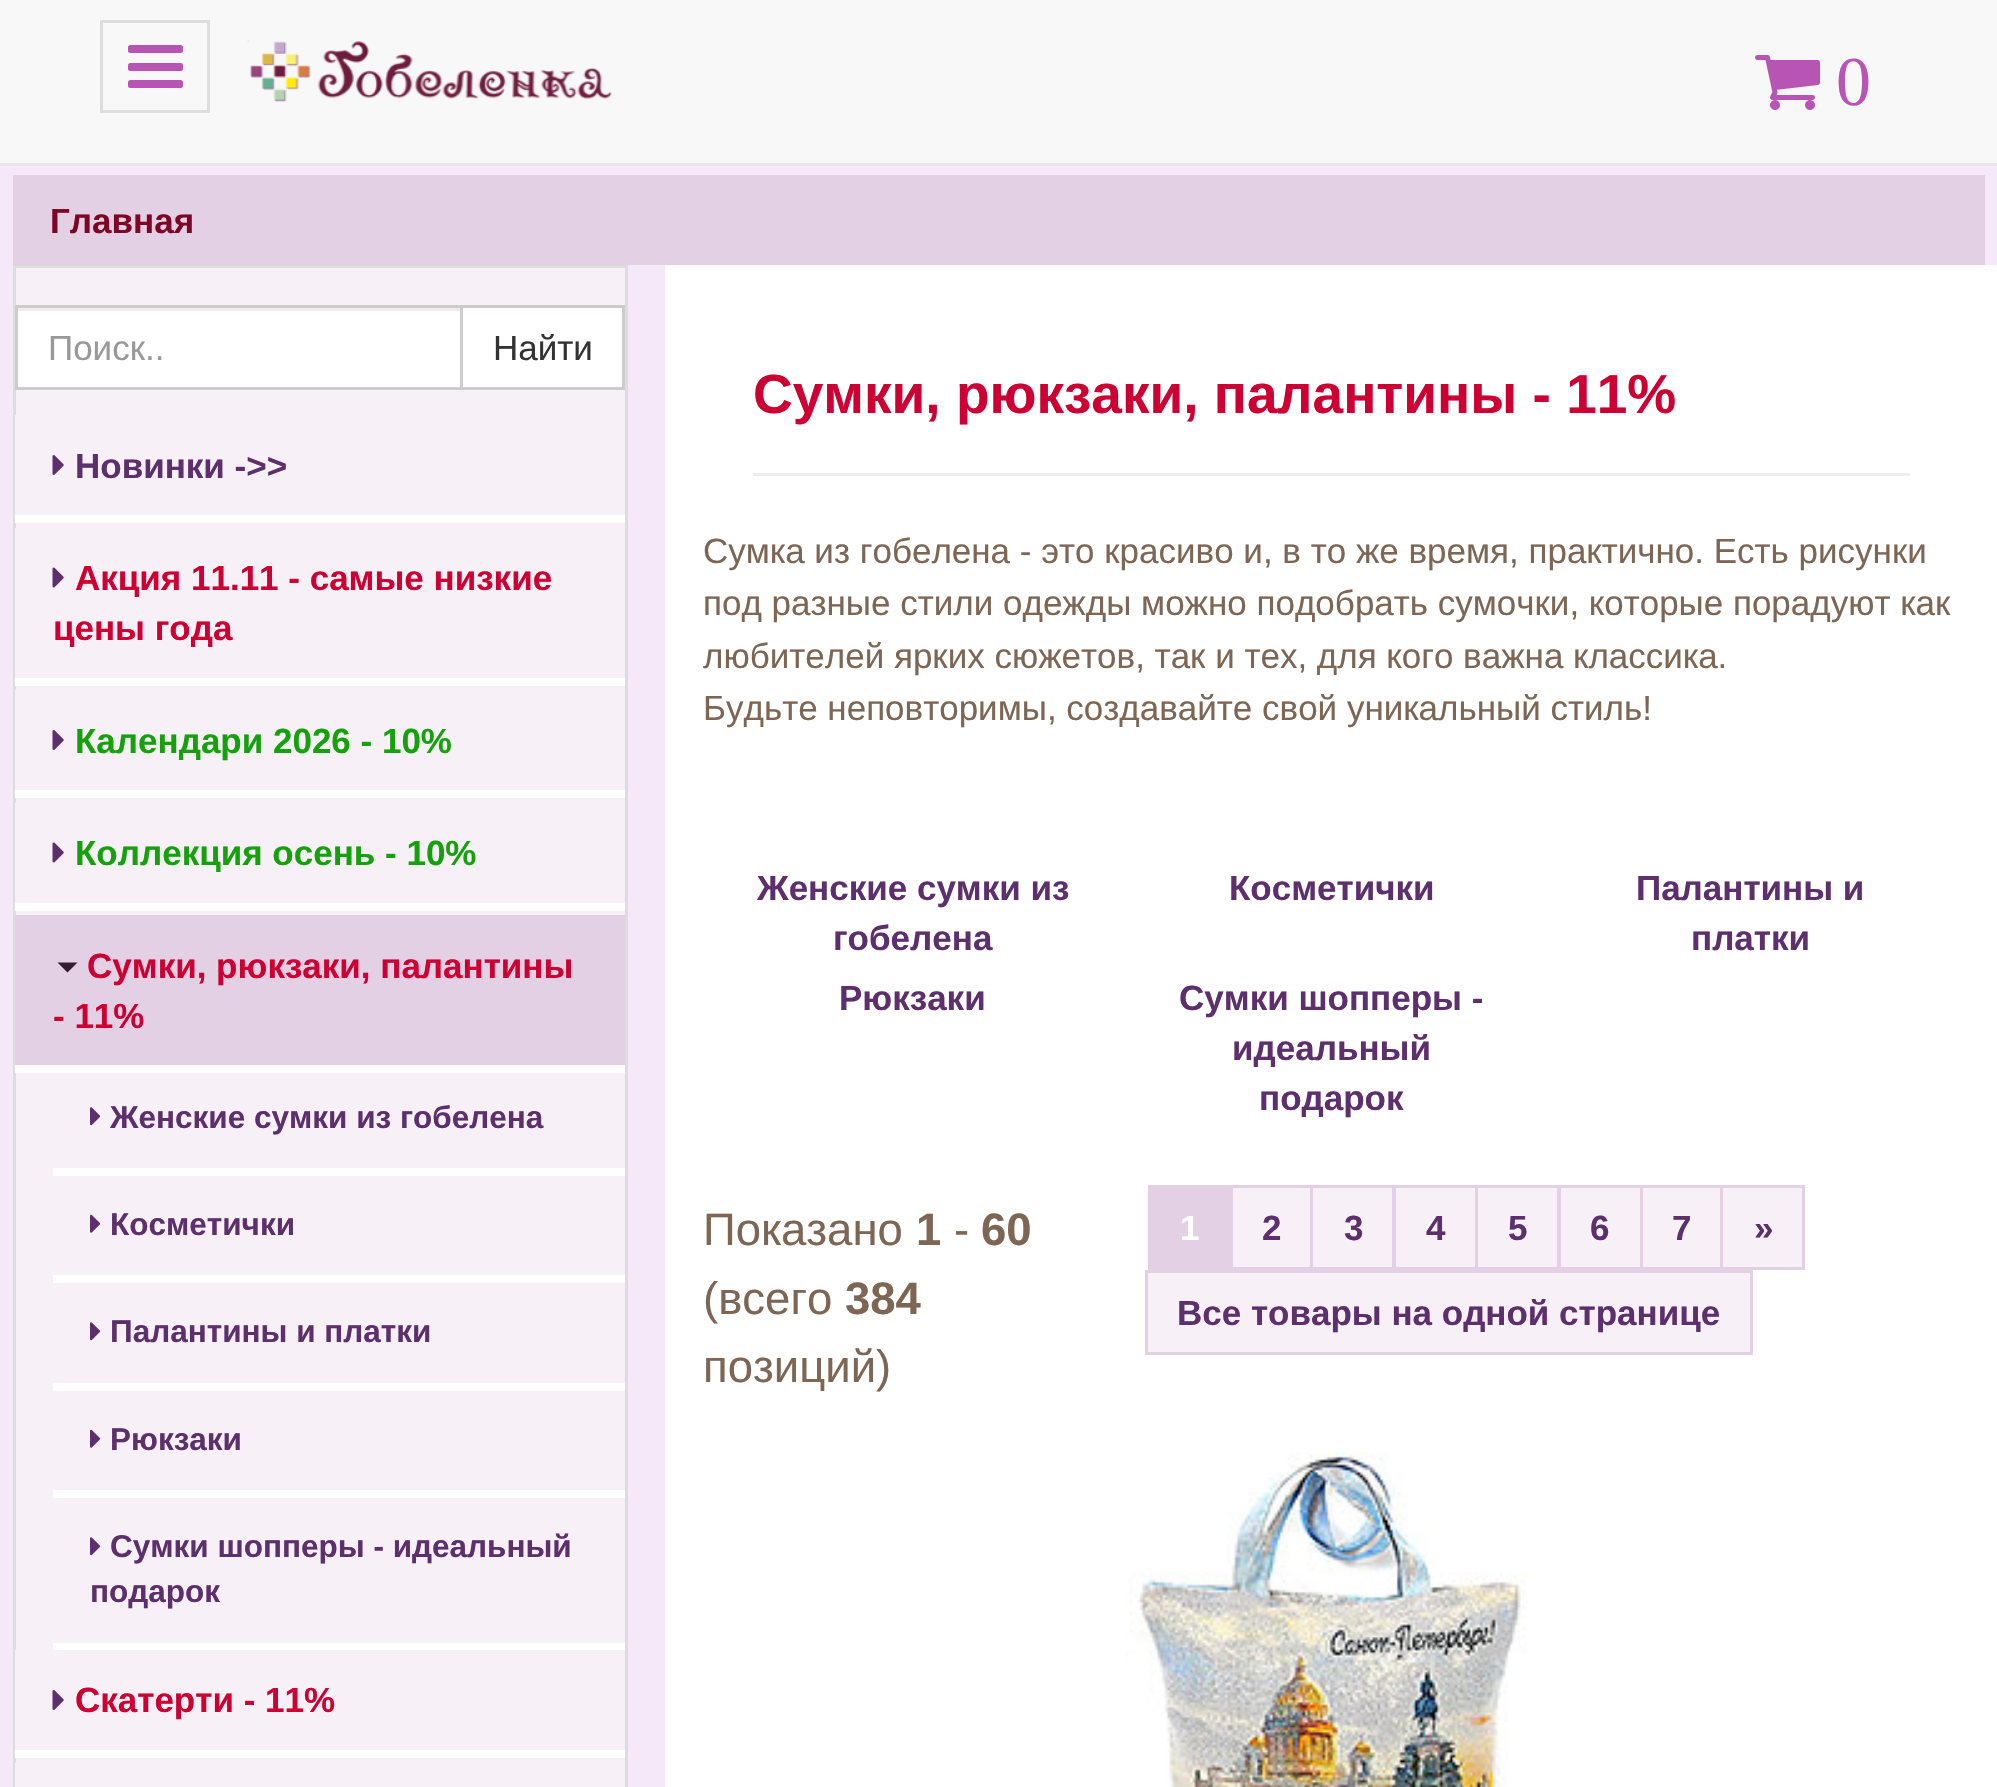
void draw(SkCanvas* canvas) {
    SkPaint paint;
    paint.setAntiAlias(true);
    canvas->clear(0xFFF5E8F9);
    paint.setColor(0xFFF8F8F8);
    canvas->drawRect(SkRect::MakeXYWH(0, 0, 1997, 163), paint);
    paint.setColor(0xFFE7E7E7);
    canvas->drawRect(SkRect::MakeXYWH(0, 163, 1997, 3), paint);
    paint.setStyle(SkPaint::kStroke_Style);
    paint.setStrokeWidth(3);
    paint.setColor(0xFFDDDDDD);
    canvas->drawRect(SkRect::MakeXYWH(101.5f, 21.5f, 107, 90), paint);
    paint.setStyle(SkPaint::kFill_Style);
    paint.setColor(0xFFB854B3);
    canvas->drawRoundRect(SkRect::MakeXYWH(128, 45, 55, 8), 2.5f, 2.5f, paint);
    canvas->drawRoundRect(SkRect::MakeXYWH(128, 63, 55, 8), 2.5f, 2.5f, paint);
    canvas->drawRoundRect(SkRect::MakeXYWH(128, 80, 55, 8), 2.5f, 2.5f, paint);
    canvas->drawImageRect(SkImages::DeferredFromEncodedData(SkData::MakeFromFileName("img1.png")), SkRect::MakeXYWH(247, 39, 365, 63), SkSamplingOptions());
    canvas->drawImageRect(SkImages::DeferredFromEncodedData(SkData::MakeFromFileName("img2.png")), SkRect::MakeXYWH(1755, 55, 65, 55), SkSamplingOptions());
    SkFont font1(fontMgr->matchFamilyStyle("Liberation Serif", SkFontStyle::Normal()), 70);
    font1.setSubpixel(true);
    canvas->drawString("0", 1836, 105, font1, paint);
    paint.setColor(0xFFE4D0E4);
    canvas->drawRect(SkRect::MakeXYWH(13, 175, 1972, 90), paint);
    SkFont font2(fontMgr->matchFamilyStyle("Liberation Sans", SkFontStyle::Bold()), 35);
    font2.setSubpixel(true);
    paint.setColor(0xFF7E0524);
    canvas->drawString("Главная", 50, 233, font2, paint);
    paint.setColor(0xFFF7F1F7);
    canvas->drawRect(SkRect::MakeXYWH(16, 268, 609, 1495), paint);
    paint.setStyle(SkPaint::kStroke_Style);
    paint.setColor(0xFFDDDDDD);
    canvas->drawRect(SkRect::MakeXYWH(14.5f, 266.5f, 612, 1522), paint);
    paint.setStyle(SkPaint::kFill_Style);
    paint.setColor(0xFFFFFFFF);
    canvas->drawRect(SkRect::MakeXYWH(18, 311, 442, 76), paint);
    paint.setColor(0xFFECECEC);
    canvas->drawRect(SkRect::MakeXYWH(18, 308, 442, 3), paint);
    paint.setStyle(SkPaint::kStroke_Style);
    paint.setColor(0xFFCCCCCC);
    canvas->drawRect(SkRect::MakeXYWH(16.5f, 306.5f, 445, 82), paint);
    SkFont font3(fontMgr->matchFamilyStyle("Liberation Sans", SkFontStyle::Normal()), 35);
    font3.setSubpixel(true);
    paint.setStyle(SkPaint::kFill_Style);
    paint.setColor(0xFF999999);
    canvas->drawString("Поиск..", 48, 360, font3, paint);
    paint.setColor(0xFFFFFFFF);
    canvas->drawRect(SkRect::MakeXYWH(461.5f, 306.5f, 162, 82), paint);
    paint.setStyle(SkPaint::kStroke_Style);
    paint.setColor(0xFFCCCCCC);
    canvas->drawRect(SkRect::MakeXYWH(461.5f, 306.5f, 162, 82), paint);
    paint.setStyle(SkPaint::kFill_Style);
    paint.setColor(0xFF333333);
    canvas->drawString("Найти", 493, 360, font3, paint);
    paint.setColor(0xFFF7F1F7);
    canvas->drawRect(SkRect::MakeXYWH(15, 415, 1, 100), paint);
    paint.setColor(0xFFFFFFFF);
    canvas->drawRect(SkRect::MakeXYWH(15, 515, 610, 8), paint);
    canvas->drawImageRect(SkImages::DeferredFromEncodedData(SkData::MakeFromFileName("img3.png")), SkRect::MakeXYWH(52, 455, 12, 20), SkSamplingOptions());
    paint.setColor(0xFF5D2F6C);
    canvas->drawString("Новинки ->>", 75, 478, font2, paint);
    paint.setColor(0xFFF7F1F7);
    canvas->drawRect(SkRect::MakeXYWH(15, 528, 1, 150), paint);
    paint.setColor(0xFFFFFFFF);
    canvas->drawRect(SkRect::MakeXYWH(15, 678, 610, 8), paint);
    canvas->drawImageRect(SkImages::DeferredFromEncodedData(SkData::MakeFromFileName("img4.png")), SkRect::MakeXYWH(52, 567, 12, 21), SkSamplingOptions());
    paint.setColor(0xFFCC0033);
    canvas->drawString("Акция 11.11 - самые низкие", 75, 590, font2, paint);
    canvas->drawString("цены года", 53, 640, font2, paint);
    paint.setColor(0xFFF7F1F7);
    canvas->drawRect(SkRect::MakeXYWH(15, 690, 1, 100), paint);
    paint.setColor(0xFFFFFFFF);
    canvas->drawRect(SkRect::MakeXYWH(15, 790, 610, 8), paint);
    canvas->drawImageRect(SkImages::DeferredFromEncodedData(SkData::MakeFromFileName("img3.png")), SkRect::MakeXYWH(52, 730, 12, 20), SkSamplingOptions());
    paint.setColor(0xFF14A10B);
    canvas->drawString("Календари 2026 - 10%", 75, 753, font2, paint);
    paint.setColor(0xFFF7F1F7);
    canvas->drawRect(SkRect::MakeXYWH(15, 803, 1, 100), paint);
    paint.setColor(0xFFFFFFFF);
    canvas->drawRect(SkRect::MakeXYWH(15, 903, 610, 8), paint);
    canvas->drawImageRect(SkImages::DeferredFromEncodedData(SkData::MakeFromFileName("img4.png")), SkRect::MakeXYWH(52, 842, 12, 21), SkSamplingOptions());
    paint.setColor(0xFF14A10B);
    canvas->drawString("Коллекция осень - 10%", 75, 865, font2, paint);
    paint.setColor(0xFFE4D0E4);
    canvas->drawRect(SkRect::MakeXYWH(15, 915, 610, 150), paint);
    paint.setColor(0xFFFFFFFF);
    canvas->drawRect(SkRect::MakeXYWH(15, 1065, 610, 8), paint);
    paint.setColor(0xFF321D32);
    canvas->drawPath(SkPathBuilder().moveTo(57.5f, 962.5f).lineTo(77.5f, 962.5f).lineTo(67.5f, 972.5f).close().detach(), paint);
    paint.setColor(0xFFCC0033);
    canvas->drawString("Сумки, рюкзаки, палантины", 87, 978, font2, paint);
    canvas->drawString("- 11%", 53, 1028, font2, paint);
    paint.setColor(0xFFFFFFFF);
    canvas->drawRect(SkRect::MakeXYWH(53, 1168, 572, 8), paint);
    canvas->drawImageRect(SkImages::DeferredFromEncodedData(SkData::MakeFromFileName("img5.png")), SkRect::MakeXYWH(90, 1107, 11, 19), SkSamplingOptions());
    SkFont font4(fontMgr->matchFamilyStyle("Liberation Sans", SkFontStyle::Bold()), 31.5f);
    font4.setSubpixel(true);
    paint.setColor(0xFF5D2F6C);
    canvas->drawString("Женские сумки из гобелена", 110, 1128, font4, paint);
    paint.setColor(0xFFFFFFFF);
    canvas->drawRect(SkRect::MakeXYWH(53, 1275, 572, 8), paint);
    canvas->drawImageRect(SkImages::DeferredFromEncodedData(SkData::MakeFromFileName("img6.png")), SkRect::MakeXYWH(90, 1214, 11, 19), SkSamplingOptions());
    paint.setColor(0xFF5D2F6C);
    canvas->drawString("Косметички", 110, 1235, font4, paint);
    paint.setColor(0xFFFFFFFF);
    canvas->drawRect(SkRect::MakeXYWH(53, 1383, 572, 8), paint);
    canvas->drawImageRect(SkImages::DeferredFromEncodedData(SkData::MakeFromFileName("img5.png")), SkRect::MakeXYWH(90, 1322, 11, 19), SkSamplingOptions());
    paint.setColor(0xFF5D2F6C);
    canvas->drawString("Палантины и платки", 110, 1342, font4, paint);
    paint.setColor(0xFFFFFFFF);
    canvas->drawRect(SkRect::MakeXYWH(53, 1490, 572, 8), paint);
    canvas->drawImageRect(SkImages::DeferredFromEncodedData(SkData::MakeFromFileName("img6.png")), SkRect::MakeXYWH(90, 1429, 11, 19), SkSamplingOptions());
    paint.setColor(0xFF5D2F6C);
    canvas->drawString("Рюкзаки", 110, 1450, font4, paint);
    paint.setColor(0xFFFFFFFF);
    canvas->drawRect(SkRect::MakeXYWH(53, 1643, 572, 7), paint);
    canvas->drawImageRect(SkImages::DeferredFromEncodedData(SkData::MakeFromFileName("img5.png")), SkRect::MakeXYWH(90, 1537, 11, 19), SkSamplingOptions());
    paint.setColor(0xFF5D2F6C);
    canvas->drawString("Сумки шопперы - идеальный", 110, 1557, font4, paint);
    canvas->drawString("подарок", 90, 1602, font4, paint);
    paint.setColor(0xFFF7F1F7);
    canvas->drawRect(SkRect::MakeXYWH(15, 1650, 1, 100), paint);
    paint.setColor(0xFFFFFFFF);
    canvas->drawRect(SkRect::MakeXYWH(15, 1750, 610, 8), paint);
    canvas->drawImageRect(SkImages::DeferredFromEncodedData(SkData::MakeFromFileName("img3.png")), SkRect::MakeXYWH(52, 1690, 12, 20), SkSamplingOptions());
    paint.setColor(0xFFCC0033);
    canvas->drawString("Скатерти - 11%", 75, 1712, font2, paint);
    paint.setColor(0xFFF7F1F7);
    canvas->drawRect(SkRect::MakeXYWH(15, 1763, 610, 24), paint);
    paint.setColor(0xFFFFFFFF);
    canvas->drawRect(SkRect::MakeXYWH(665, 265, 1332, 1522), paint);
    paint.setColor(0xFFEEEEEE);
    canvas->drawRect(SkRect::MakeXYWH(753, 473, 1157, 3), paint);
    SkFont font5(fontMgr->matchFamilyStyle("Liberation Sans", SkFontStyle::Bold()), 55);
    font5.setSubpixel(true);
    paint.setColor(0xFFCC0033);
    canvas->drawString("Сумки, рюкзаки, палантины - 11%", 753, 413, font5, paint);
    paint.setColor(0xFF7D6654);
    canvas->drawString("Сумка из гобелена - это красиво и, в то же время, практично. Есть рисунки", 703, 563, font3, paint);
    canvas->drawString("под разные стили одежды можно подобрать сумочки, которые порадуют как", 703, 615, font3, paint);
    canvas->drawString("любителей ярких сюжетов, так и тех, для кого важна классика.", 703, 668, font3, paint);
    canvas->drawString("Будьте неповторимы, создавайте свой уникальный стиль!", 703, 720, font3, paint);
    paint.setColor(0xFF5D2F6C);
    canvas->drawString("Женские сумки из", 757, 900, font2, paint);
    canvas->drawString("гобелена", 833, 950, font2, paint);
    canvas->drawString("Косметички", 1229, 900, font2, paint);
    canvas->drawString("Палантины и", 1636, 900, font2, paint);
    canvas->drawString("платки", 1691, 950, font2, paint);
    canvas->drawString("Рюкзаки", 839, 1010, font2, paint);
    canvas->drawString("Сумки шопперы -", 1179, 1010, font2, paint);
    canvas->drawString("идеальный", 1232, 1060, font2, paint);
    canvas->drawString("подарок", 1259, 1110, font2, paint);
    SkFont font6(fontMgr->matchFamilyStyle("Liberation Sans", SkFontStyle::Normal()), 45.5f);
    font6.setSubpixel(true);
    paint.setColor(0xFF7D6654);
    canvas->drawString("Показано", 703, 1245, font6, paint);
    SkFont font7(fontMgr->matchFamilyStyle("Liberation Sans", SkFontStyle::Bold()), 45.5f);
    font7.setSubpixel(true);
    canvas->drawString("1", 916, 1245, font7, paint);
    canvas->drawString("-", 954, 1245, font6, paint);
    canvas->drawString("60", 981, 1245, font7, paint);
    canvas->drawString("(всего", 703, 1314, font6, paint);
    canvas->drawString("384", 845, 1314, font7, paint);
    canvas->drawString("позиций)", 703, 1382, font6, paint);
    paint.setColor(0xFFE4D0E4);
    canvas->drawRect(SkRect::MakeXYWH(1148, 1185, 82, 85), paint);
    paint.setColor(0xFFFFFFFF);
    canvas->drawString("1", 1180, 1240, font2, paint);
    paint.setColor(0xFFF7F1F7);
    canvas->drawRect(SkRect::MakeXYWH(1231.5f, 1186.5f, 80, 82), paint);
    paint.setStyle(SkPaint::kStroke_Style);
    paint.setColor(0xFFE4D0E4);
    canvas->drawRect(SkRect::MakeXYWH(1231.5f, 1186.5f, 80, 82), paint);
    paint.setStyle(SkPaint::kFill_Style);
    paint.setColor(0xFF5D2F6C);
    canvas->drawString("2", 1262, 1240, font2, paint);
    paint.setColor(0xFFF7F1F7);
    canvas->drawRect(SkRect::MakeXYWH(1311.5f, 1186.5f, 82, 82), paint);
    paint.setStyle(SkPaint::kStroke_Style);
    paint.setColor(0xFFE4D0E4);
    canvas->drawRect(SkRect::MakeXYWH(1311.5f, 1186.5f, 82, 82), paint);
    paint.setStyle(SkPaint::kFill_Style);
    paint.setColor(0xFF5D2F6C);
    canvas->drawString("3", 1344, 1240, font2, paint);
    paint.setColor(0xFFF7F1F7);
    canvas->drawRect(SkRect::MakeXYWH(1394.5f, 1186.5f, 82, 82), paint);
    paint.setStyle(SkPaint::kStroke_Style);
    paint.setColor(0xFFE4D0E4);
    canvas->drawRect(SkRect::MakeXYWH(1394.5f, 1186.5f, 82, 82), paint);
    paint.setStyle(SkPaint::kFill_Style);
    paint.setColor(0xFF5D2F6C);
    canvas->drawString("4", 1426, 1240, font2, paint);
    paint.setColor(0xFFF7F1F7);
    canvas->drawRect(SkRect::MakeXYWH(1476.5f, 1186.5f, 82, 82), paint);
    paint.setStyle(SkPaint::kStroke_Style);
    paint.setColor(0xFFE4D0E4);
    canvas->drawRect(SkRect::MakeXYWH(1476.5f, 1186.5f, 82, 82), paint);
    paint.setStyle(SkPaint::kFill_Style);
    paint.setColor(0xFF5D2F6C);
    canvas->drawString("5", 1508, 1240, font2, paint);
    paint.setColor(0xFFF7F1F7);
    canvas->drawRect(SkRect::MakeXYWH(1559.5f, 1186.5f, 82, 82), paint);
    paint.setStyle(SkPaint::kStroke_Style);
    paint.setColor(0xFFE4D0E4);
    canvas->drawRect(SkRect::MakeXYWH(1559.5f, 1186.5f, 82, 82), paint);
    paint.setStyle(SkPaint::kFill_Style);
    paint.setColor(0xFF5D2F6C);
    canvas->drawString("6", 1590, 1240, font2, paint);
    paint.setColor(0xFFF7F1F7);
    canvas->drawRect(SkRect::MakeXYWH(1641.5f, 1186.5f, 80, 82), paint);
    paint.setStyle(SkPaint::kStroke_Style);
    paint.setColor(0xFFE4D0E4);
    canvas->drawRect(SkRect::MakeXYWH(1641.5f, 1186.5f, 80, 82), paint);
    paint.setStyle(SkPaint::kFill_Style);
    paint.setColor(0xFF5D2F6C);
    canvas->drawString("7", 1672, 1240, font2, paint);
    paint.setColor(0xFFF7F1F7);
    canvas->drawRect(SkRect::MakeXYWH(1721.5f, 1186.5f, 82, 82), paint);
    paint.setStyle(SkPaint::kStroke_Style);
    paint.setColor(0xFFE4D0E4);
    canvas->drawRect(SkRect::MakeXYWH(1721.5f, 1186.5f, 82, 82), paint);
    paint.setStyle(SkPaint::kFill_Style);
    paint.setColor(0xFF5D2F6C);
    canvas->drawString("»", 1754, 1240, font2, paint);
    paint.setColor(0xFFF7F1F7);
    canvas->drawRect(SkRect::MakeXYWH(1146.5f, 1271.5f, 605, 82), paint);
    paint.setStyle(SkPaint::kStroke_Style);
    paint.setColor(0xFFE4D0E4);
    canvas->drawRect(SkRect::MakeXYWH(1146.5f, 1271.5f, 605, 82), paint);
    paint.setStyle(SkPaint::kFill_Style);
    paint.setColor(0xFF5D2F6C);
    canvas->drawString("Все товары на одной странице", 1177, 1325, font2, paint);
    canvas->drawImageRect(SkImages::DeferredFromEncodedData(SkData::MakeFromFileName("img7.png")), SkRect::MakeXYWH(1125, 1452, 402, 335), SkSamplingOptions());
}
